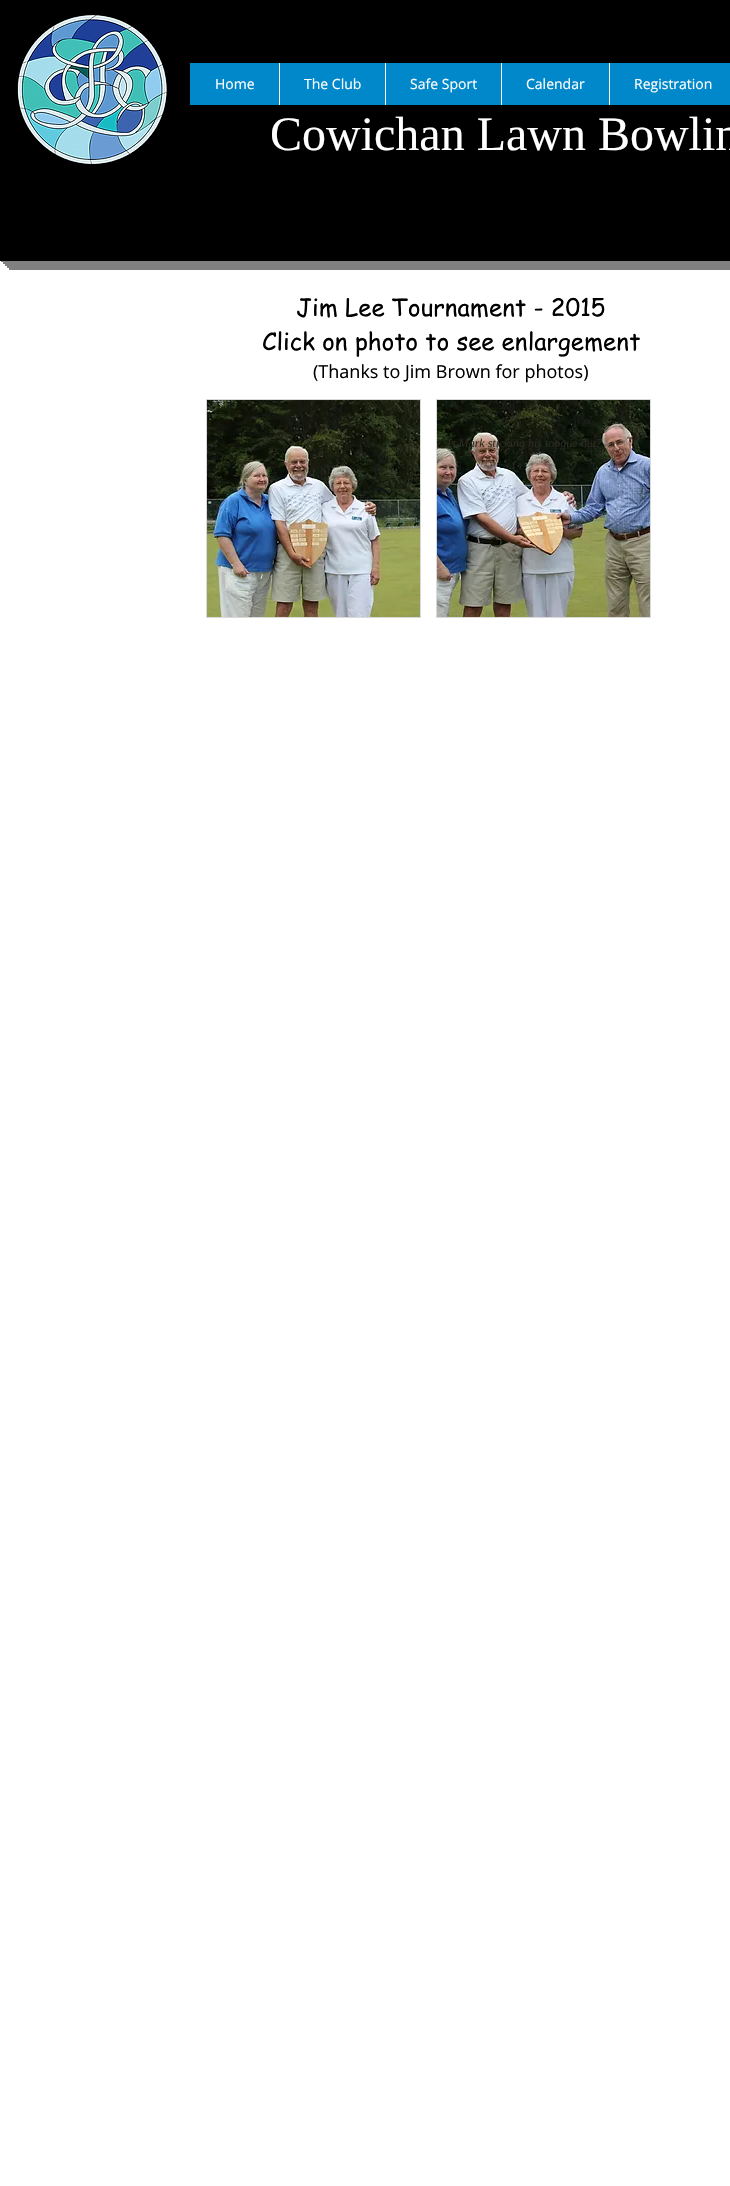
void draw(SkCanvas* canvas) {
    SkPaint paint;
    paint.setAntiAlias(true);
    canvas->clear(0xFFFFFFFF);
    paint.setColor(0xFF808080);
    canvas->drawPath(SkPathBuilder().moveTo(9, 261).lineTo(9, 270).lineTo(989, 270).lineTo(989, 9).lineTo(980, 9).lineTo(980, 261).close().detach(), paint);
    canvas->drawPath(SkPathBuilder().moveTo(7, 261).lineTo(7, 268).lineTo(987, 268).lineTo(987, 7).lineTo(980, 7).lineTo(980, 261).close().detach(), paint);
    canvas->drawPath(SkPathBuilder().moveTo(5, 261).lineTo(5, 266).lineTo(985, 266).lineTo(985, 5).lineTo(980, 5).lineTo(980, 261).close().detach(), paint);
    canvas->drawPath(SkPathBuilder().moveTo(3, 261).lineTo(3, 264).lineTo(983, 264).lineTo(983, 3).lineTo(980, 3).lineTo(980, 261).close().detach(), paint);
    canvas->drawPath(SkPathBuilder().moveTo(1, 261).lineTo(1, 262).lineTo(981, 262).lineTo(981, 1).lineTo(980, 1).lineTo(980, 261).close().detach(), paint);
    paint.setColor(0xFF000000);
    canvas->drawRect(SkRect::MakeXYWH(0, 0, 730, 261), paint);
    canvas->drawImageRect(SkImages::DeferredFromEncodedData(SkData::MakeFromFileName("img1.png")), SkRect::MakeXYWH(17, 14, 150, 150), SkSamplingOptions());
    paint.setColor(0xFF0088CB);
    canvas->drawRect(SkRect::MakeXYWH(190, 63, 540, 42), paint);
    SkFont font1(fontMgr->matchFamilyStyle("Open Sans", SkFontStyle::Normal()), 14);
    font1.setSubpixel(true);
    paint.setColor(0xFFFFFFFF);
    canvas->drawString("Home", 215, 89, font1, paint);
    canvas->drawRect(SkRect::MakeXYWH(279, 63, 1, 42), paint);
    canvas->drawString("The Club", 304, 89, font1, paint);
    canvas->drawRect(SkRect::MakeXYWH(385, 63, 1, 42), paint);
    canvas->drawString("Safe Sport", 410, 89, font1, paint);
    canvas->drawRect(SkRect::MakeXYWH(501, 63, 1, 42), paint);
    canvas->drawString("Calendar", 526, 89, font1, paint);
    canvas->drawRect(SkRect::MakeXYWH(609, 63, 1, 42), paint);
    canvas->drawString("Registration", 634, 89, font1, paint);
    SkFont font2(fontMgr->matchFamilyStyle("Liberation Serif", SkFontStyle::Normal()), 48);
    font2.setSubpixel(true);
    canvas->drawString("Cowichan Lawn Bowlin", 270, 150, font2, paint);
    SkFont font3(fontMgr->matchFamilyStyle("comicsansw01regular", SkFontStyle::Normal()), 24);
    font3.setSubpixel(true);
    paint.setColor(0xFF000000);
    canvas->drawString("Jim Lee Tournament - 2015", 296, 316, font3, paint);
    canvas->drawString("Click on photo to see enlargement", 262, 350, font3, paint);
    SkFont font4(fontMgr->matchFamilyStyle("Open Sans", SkFontStyle::Normal()), 18);
    font4.setSubpixel(true);
    canvas->drawString("(Thanks to Jim Brown for photos)", 313, 378, font4, paint);
    paint.setColor(0xFFD9D9D9);
    canvas->drawRect(SkRect::MakeXYWH(206, 399, 215, 219), paint);
    canvas->drawImageRect(SkImages::DeferredFromEncodedData(SkData::MakeFromFileName("img2.png")), SkRect::MakeXYWH(207, 400, 213, 217), SkSamplingOptions());
    canvas->drawRect(SkRect::MakeXYWH(436, 399, 215, 219), paint);
    canvas->drawImageRect(SkImages::DeferredFromEncodedData(SkData::MakeFromFileName("img3.png")), SkRect::MakeXYWH(437, 400, 213, 217), SkSamplingOptions());
    SkFont font5(fontMgr->matchFamilyStyle("Liberation Serif", SkFontStyle::Italic()), 12);
    font5.setSubpixel(true);
    paint.setColor(0xFF2B2B1F);
    canvas->drawString("Is Mark sticking his tongue out?", 447, 447, font5, paint);
}
